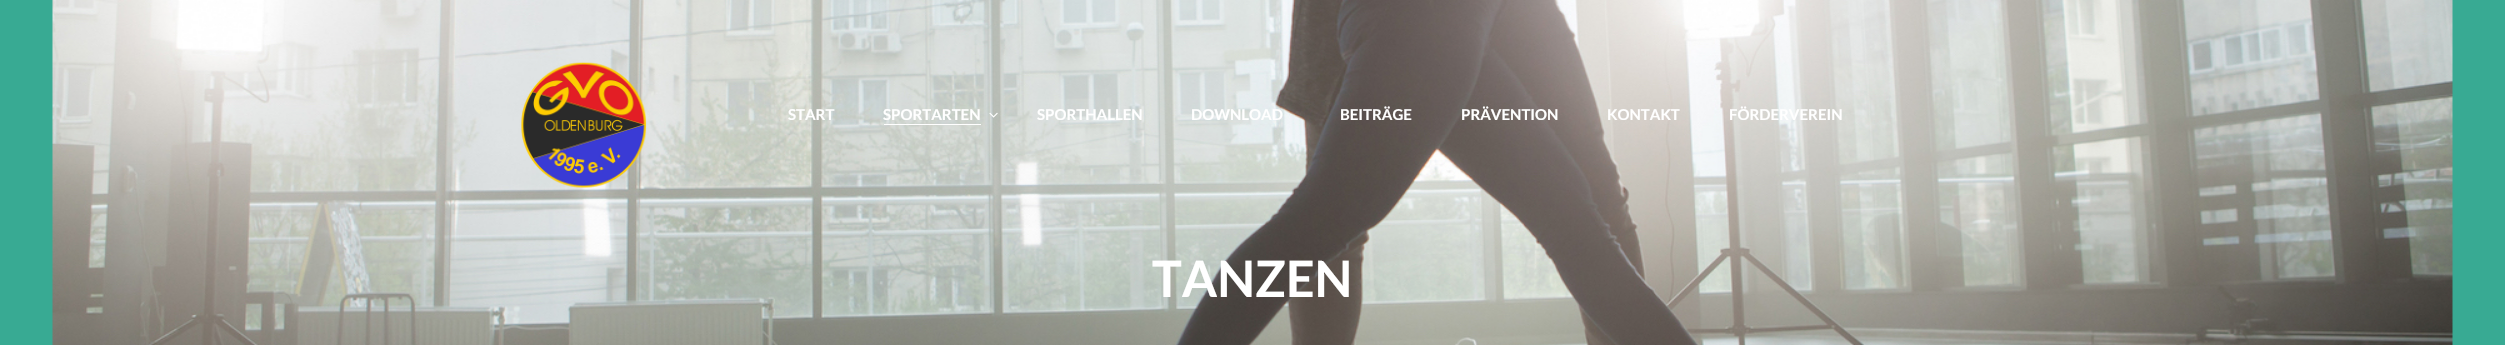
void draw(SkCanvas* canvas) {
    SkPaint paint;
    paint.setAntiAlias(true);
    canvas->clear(0xFF38AA93);
    canvas->drawImageRect(SkImages::DeferredFromEncodedData(SkData::MakeFromFileName("img1.png")), SkRect::MakeXYWH(52, 0, 2401, 345), SkSamplingOptions());
    canvas->drawImageRect(SkImages::DeferredFromEncodedData(SkData::MakeFromFileName("img2.png")), SkRect::MakeXYWH(521, 62, 126, 126), SkSamplingOptions());
    SkFont font1(fontMgr->matchFamilyStyle("Lato", SkFontStyle::Bold()), 15);
    font1.setSubpixel(true);
    paint.setColor(0xFFFFFFFF);
    canvas->drawString("START", 788, 120, font1, paint);
    canvas->drawString("SPORTARTEN", 883, 120, font1, paint);
    canvas->drawRect(SkRect::MakeXYWH(884, 124, 97, 1), paint);
    canvas->drawImageRect(SkImages::DeferredFromEncodedData(SkData::MakeFromFileName("img3.png")), SkRect::MakeXYWH(989, 112, 9, 6), SkSamplingOptions());
    canvas->drawString("SPORTHALLEN", 1037, 120, font1, paint);
    canvas->drawString("DOWNLOAD", 1191, 120, font1, paint);
    canvas->drawString("BEITRÄGE", 1340, 120, font1, paint);
    canvas->drawString("PRÄVENTION", 1461, 120, font1, paint);
    canvas->drawString("KONTAKT", 1607, 120, font1, paint);
    canvas->drawString("FÖRDERVEREIN", 1729, 120, font1, paint);
    SkFont font2(fontMgr->matchFamilyStyle("Lato", SkFontStyle::Bold()), 50);
    font2.setSubpixel(true);
    canvas->drawString("TANZEN", 1152, 297, font2, paint);
}
